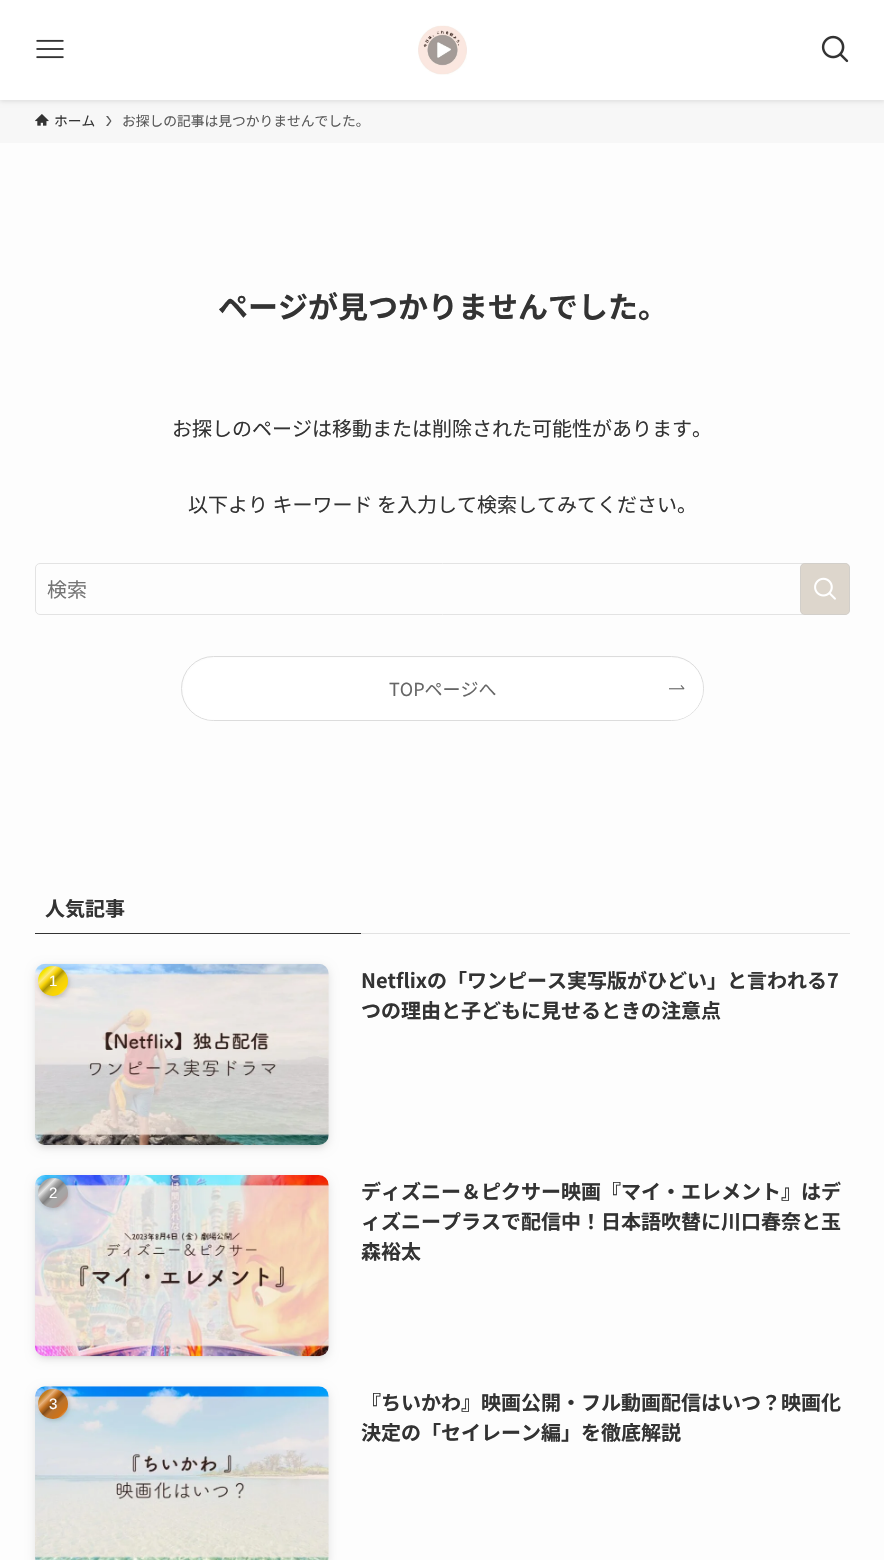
void draw(SkCanvas* canvas) {
    SkPaint paint;
    paint.setAntiAlias(true);
    canvas->clear(0xFFFDFDFD);
    paint.setColor(0xFFF7F7F7);
    canvas->drawRect(SkRect::MakeXYWH(0, 100, 884, 43), paint);
    paint.setColor(0x1F000000);
    paint.setMaskFilter(SkMaskFilter::MakeBlur(kNormal_SkBlurStyle, 2.5f));
    canvas->drawRect(SkRect::MakeXYWH(0, 1, 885, 100), paint);
    paint.setMaskFilter(nullptr);
    paint.setColor(0xFFFFFFFF);
    canvas->drawRect(SkRect::MakeXYWH(0, 0, 884, 100), paint);
    canvas->drawImageRect(SkImages::DeferredFromEncodedData(SkData::MakeFromFileName("img1.png")), SkRect::MakeXYWH(36, 39, 28, 20), SkSamplingOptions());
    canvas->drawImageRect(SkImages::DeferredFromEncodedData(SkData::MakeFromFileName("img2.png")), SkRect::MakeXYWH(418, 25, 49, 50), SkSamplingOptions());
    canvas->drawImageRect(SkImages::DeferredFromEncodedData(SkData::MakeFromFileName("img3.png")), SkRect::MakeXYWH(821, 35, 28, 28), SkSamplingOptions());
    canvas->drawImageRect(SkImages::DeferredFromEncodedData(SkData::MakeFromFileName("img4.png")), SkRect::MakeXYWH(35, 114, 14, 12), SkSamplingOptions());
    SkFont font1(fontMgr->matchFamilyStyle("Noto Sans JP", SkFontStyle::Normal()), 13.75f);
    font1.setSubpixel(true);
    paint.setColor(0xFF333333);
    canvas->drawString("ホーム", 54, 126, font1, paint);
    paint.setColor(0xFF5A5A5A);
    canvas->drawPath(SkPathBuilder().moveTo(108, 116).lineTo(106, 116).lineTo(110, 121).lineTo(106, 126).lineTo(108, 126).lineTo(111.5f, 121).close().detach(), paint);
    canvas->drawString("お探しの記事は見つかりませんでした。", 122, 126, font1, paint);
    SkFont font2(fontMgr->matchFamilyStyle("Noto Sans JP", SkFontStyle::Bold()), 30);
    font2.setSubpixel(true);
    paint.setColor(0xFF333333);
    canvas->drawString("ページが見つかりませんでした。", 218, 318, font2, paint);
    SkFont font3(fontMgr->matchFamilyStyle("Noto Sans JP", SkFontStyle::Normal()), 20);
    font3.setSubpixel(true);
    canvas->drawString("お探しのページは移動または削除された可能性があります。", 172, 436, font3, paint);
    canvas->drawString("以下より キーワード を入力して検索してみてください。", 188, 512, font3, paint);
    paint.setStyle(SkPaint::kStroke_Style);
    paint.setStrokeWidth(1);
    paint.setColor(0xFFE3E3E3);
    canvas->drawRoundRect(SkRect::MakeXYWH(35.5f, 563.5f, 814, 51), 4.5f, 4.5f, paint);
    paint.setStyle(SkPaint::kFill_Style);
    paint.setColor(0xFF757575);
    canvas->drawString("検索", 47, 597, font3, paint);
    paint.setColor(0xFFDDD6CC);
    canvas->drawRoundRect(SkRect::MakeXYWH(800, 563, 50, 52), 5, 5, paint);
    paint.setStyle(SkPaint::kStroke_Style);
    paint.setColor(0x80C7C7C7);
    canvas->drawRoundRect(SkRect::MakeXYWH(800.5f, 563.5f, 49, 51), 4.5f, 4.5f, paint);
    canvas->drawImageRect(SkImages::DeferredFromEncodedData(SkData::MakeFromFileName("img5.png")), SkRect::MakeXYWH(814, 577, 22, 23), SkSamplingOptions());
    paint.setColor(0xFFDCDCDC);
    canvas->drawRoundRect(SkRect::MakeXYWH(181.5f, 656.5f, 522, 64), 32, 32, paint);
    paint.setStyle(SkPaint::kFill_Style);
    paint.setColor(0xFFFFFFFF);
    canvas->drawRoundRect(SkRect::MakeXYWH(183, 658, 520, 62), 31, 31, paint);
    SkFont font4(fontMgr->matchFamilyStyle("Noto Sans JP", SkFontStyle::Normal()), 18);
    font4.setSubpixel(true);
    paint.setColor(0xFF666666);
    canvas->drawString("TOPページへ", 389, 696, font4, paint);
    canvas->drawImageRect(SkImages::DeferredFromEncodedData(SkData::MakeFromFileName("img6.png")), SkRect::MakeXYWH(669, 685, 16, 5), SkSamplingOptions());
    SkFont font5(fontMgr->matchFamilyStyle("Noto Sans JP", SkFontStyle::Bold()), 20);
    font5.setSubpixel(true);
    paint.setColor(0xFF333333);
    canvas->drawString("人気記事", 45, 916, font5, paint);
    canvas->drawRect(SkRect::MakeXYWH(35, 933, 326, 1), paint);
    paint.setColor(0xFFE2E2E2);
    canvas->drawRect(SkRect::MakeXYWH(361, 933, 489, 1), paint);
    paint.setColor(0x1A000000);
    paint.setMaskFilter(SkMaskFilter::MakeBlur(kNormal_SkBlurStyle, 2.5f));
    canvas->drawRoundRect(SkRect::MakeXYWH(40, 974, 284, 171), 5, 5, paint);
    paint.setMaskFilter(nullptr);
    paint.setMaskFilter(SkMaskFilter::MakeBlur(kNormal_SkBlurStyle, 5));
    canvas->drawRoundRect(SkRect::MakeXYWH(35, 966, 294, 182), 10, 10, paint);
    paint.setMaskFilter(nullptr);
    canvas->drawImageRect(SkImages::DeferredFromEncodedData(SkData::MakeFromFileName("img7.png")), SkRect::MakeXYWH(35, 963, 294, 182), SkSamplingOptions());
    paint.setColor(0x33000000);
    paint.setMaskFilter(SkMaskFilter::MakeBlur(kNormal_SkBlurStyle, 2.5f));
    canvas->drawRoundRect(SkRect::MakeXYWH(39, 968, 30, 30), 15, 15, paint);
    paint.setMaskFilter(nullptr);
    {
        const SkColor colors[] = {0xFFF7BF05, 0xFFFCEA7F, 0xFFFCD700, 0xFFF7D305, 0xFFEACA12, 0xFFAC9303, 0xFFF7D305, 0xFFFCEA7F, 0xFFF7E705, 0xFFEACA12, 0xFFF7BF05};
        const float stops[] = {0, 0.1f, 0.2f, 0.3f, 0.4f, 0.5f, 0.6f, 0.7f, 0.8f, 0.9f, 1};
        const SkPoint ends[] = {{68, 996}, {38, 966}};
        paint.setShader(SkGradientShader::MakeLinear(ends, colors, stops, 11, SkTileMode::kClamp));
        paint.setAlpha(255);
    }
    canvas->drawCircle(53, 981, 15, paint);
    SkFont font6(fontMgr->matchFamilyStyle("Liberation Sans", SkFontStyle::Normal()), 15);
    font6.setSubpixel(true);
    paint.setShader(nullptr);
    paint.setColor(0xFFFFFFFF);
    canvas->drawString("1", 49, 986, font6, paint);
    paint.setColor(0xFF333333);
    canvas->drawString("Netflixの「ワンピース実写版がひどい」と言われる7", 361, 988, font5, paint);
    canvas->drawString("つの理由と子どもに見せるときの注意点", 361, 1018, font5, paint);
    paint.setColor(0x1A000000);
    paint.setMaskFilter(SkMaskFilter::MakeBlur(kNormal_SkBlurStyle, 2.5f));
    canvas->drawRoundRect(SkRect::MakeXYWH(40, 1185, 284, 171), 5, 5, paint);
    paint.setMaskFilter(nullptr);
    paint.setMaskFilter(SkMaskFilter::MakeBlur(kNormal_SkBlurStyle, 5));
    canvas->drawRoundRect(SkRect::MakeXYWH(35, 1178, 294, 181), 10, 10, paint);
    paint.setMaskFilter(nullptr);
    canvas->drawImageRect(SkImages::DeferredFromEncodedData(SkData::MakeFromFileName("img8.png")), SkRect::MakeXYWH(35, 1175, 294, 182), SkSamplingOptions());
    paint.setColor(0x33000000);
    paint.setMaskFilter(SkMaskFilter::MakeBlur(kNormal_SkBlurStyle, 2.5f));
    canvas->drawRoundRect(SkRect::MakeXYWH(39, 1179, 30, 30), 15, 15, paint);
    paint.setMaskFilter(nullptr);
    {
        const SkColor colors[] = {0xFFA5A5A5, 0xFFE5E5E5, 0xFFAE9C9C, 0xFFA5A5A5, 0xFFA5A5A5, 0xFF7F7F7F, 0xFFA5A5A5, 0xFFE5E5E5, 0xFFA5A5A5, 0xFFA5A5A5};
        const float stops[] = {0, 0.1f, 0.2f, 0.3f, 0.4f, 0.5f, 0.6f, 0.7f, 0.8f, 1};
        const SkPoint ends[] = {{68, 1208}, {38, 1178}};
        paint.setShader(SkGradientShader::MakeLinear(ends, colors, stops, 10, SkTileMode::kClamp));
        paint.setAlpha(255);
    }
    canvas->drawCircle(53, 1193, 15, paint);
    paint.setShader(nullptr);
    paint.setColor(0xFFFFFFFF);
    canvas->drawString("2", 49, 1198, font6, paint);
    paint.setColor(0xFF333333);
    canvas->drawString("ディズニー＆ピクサー映画『マイ・エレメント』はデ", 361, 1199, font5, paint);
    canvas->drawString("ィズニープラスで配信中！日本語吹替に川口春奈と玉", 361, 1229, font5, paint);
    canvas->drawString("森裕太", 361, 1259, font5, paint);
    paint.setColor(0x1A000000);
    paint.setMaskFilter(SkMaskFilter::MakeBlur(kNormal_SkBlurStyle, 5));
    canvas->drawRoundRect(SkRect::MakeXYWH(35, 1389, 294, 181), 10, 10, paint);
    paint.setMaskFilter(nullptr);
    canvas->drawImageRect(SkImages::DeferredFromEncodedData(SkData::MakeFromFileName("img9.png")), SkRect::MakeXYWH(35, 1386, 294, 174), SkSamplingOptions());
    paint.setColor(0x33000000);
    paint.setMaskFilter(SkMaskFilter::MakeBlur(kNormal_SkBlurStyle, 2.5f));
    canvas->drawRoundRect(SkRect::MakeXYWH(39, 1390, 30, 30), 15, 15, paint);
    paint.setMaskFilter(nullptr);
    {
        const SkColor colors[] = {0xFFC46522, 0xFFE8B27D, 0xFFD07217, 0xFFC47222, 0xFFB9722E, 0xFF834C17, 0xFFC47222, 0xFFE8B27D, 0xFFC48022, 0xFFB9722E, 0xFFC46522};
        const float stops[] = {0, 0.1f, 0.2f, 0.3f, 0.4f, 0.5f, 0.6f, 0.7f, 0.8f, 0.9f, 1};
        const SkPoint ends[] = {{68, 1419}, {38, 1389}};
        paint.setShader(SkGradientShader::MakeLinear(ends, colors, stops, 11, SkTileMode::kClamp));
        paint.setAlpha(255);
    }
    canvas->drawCircle(53, 1404, 15, paint);
    paint.setShader(nullptr);
    paint.setColor(0xFFFFFFFF);
    canvas->drawString("3", 49, 1409, font6, paint);
    paint.setColor(0xFF333333);
    canvas->drawString("『ちいかわ』映画公開・フル動画配信はいつ？映画化", 361, 1410, font5, paint);
    canvas->drawString("決定の「セイレーン編」を徹底解説", 361, 1440, font5, paint);
}
